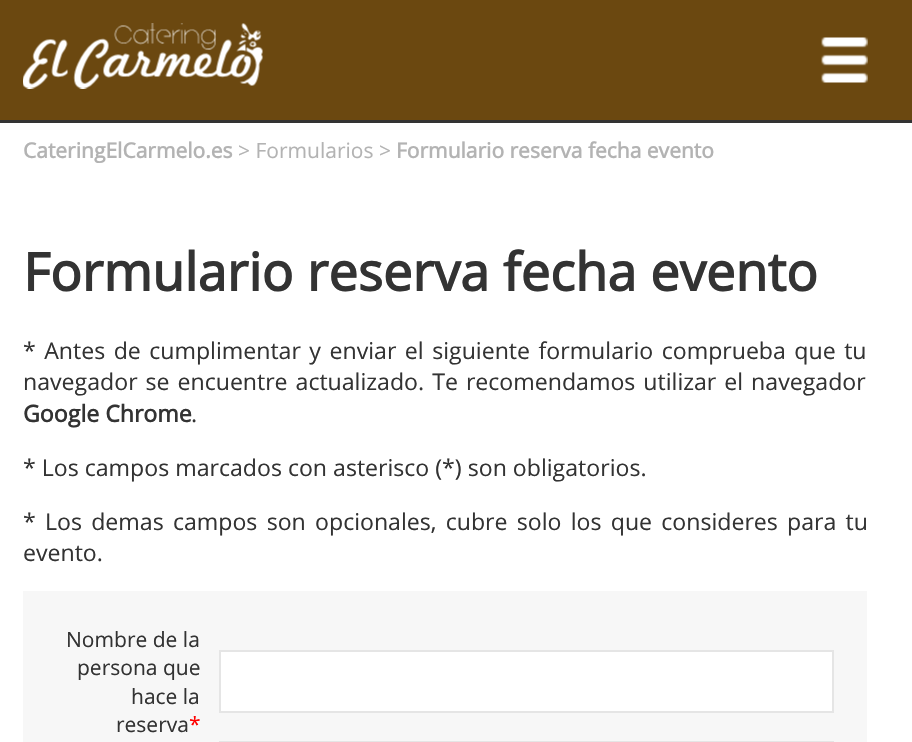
void draw(SkCanvas* canvas) {
    SkPaint paint;
    paint.setAntiAlias(true);
    auto spacedText = [&](const char* s, float x, float y, const SkFont& font, const SkPaint& ink, float letter, float word) {
        std::vector<SkGlyphID> glyphs(font.countText(s, strlen(s), SkTextEncoding::kUTF8));
        std::vector<float> xs(glyphs.size());
        font.textToGlyphs(s, strlen(s), SkTextEncoding::kUTF8, glyphs);
        font.getXPos(glyphs, xs, x);
        float extra = 0;
        for (size_t i = 0; i < glyphs.size(); i++) {
            xs[i] += extra;
            extra += letter + word * (glyphs[i] == font.unicharToGlyph(' '));
        }
        canvas->drawTextBlob(SkTextBlob::MakeFromPosHGlyphs(glyphs, xs, y, font), 0, 0, ink);
    };
    canvas->clear(0xFFFFFFFF);
    paint.setColor(0xFF6B4810);
    canvas->drawRect(SkRect::MakeXYWH(0, 0, 912, 120), paint);
    paint.setColor(0xFF333333);
    canvas->drawRect(SkRect::MakeXYWH(0, 120, 912, 3), paint);
    canvas->drawImageRect(SkImages::DeferredFromEncodedData(SkData::MakeFromFileName("img1.png")), SkRect::MakeXYWH(23, 23, 240, 66), SkSamplingOptions());
    canvas->drawImageRect(SkImages::DeferredFromEncodedData(SkData::MakeFromFileName("img2.png")), SkRect::MakeXYWH(821, 37, 47, 46), SkSamplingOptions());
    SkFont font1(fontMgr->matchFamilyStyle("Open Sans", SkFontStyle::Bold()), 21);
    font1.setSubpixel(true);
    paint.setColor(0xFFB3B3B3);
    canvas->drawString("CateringElCarmelo.es", 23, 158, font1, paint);
    SkFont font2(fontMgr->matchFamilyStyle("Open Sans", SkFontStyle::Normal()), 21);
    font2.setSubpixel(true);
    canvas->drawString("> Formularios >", 238, 158, font2, paint);
    canvas->drawString("Formulario reserva fecha evento", 396, 158, font1, paint);
    SkFont font3(fontMgr->matchFamilyStyle("Open Sans", SkFontStyle::Bold()), 52.5f);
    font3.setSubpixel(true);
    paint.setColor(0xFF333333);
    canvas->drawString("Formulario reserva fecha evento", 23, 291, font3, paint);
    SkFont font4(fontMgr->matchFamilyStyle("Open Sans", SkFontStyle::Normal()), 23.1f);
    font4.setSubpixel(true);
    spacedText("* Antes de cumplimentar y enviar el siguiente formulario comprueba que tu", 23, 359, font4, paint, 0, 2.5f);
    spacedText("navegador se encuentre actualizado. Te recomendamos utilizar el navegador", 23, 390, font4, paint, 0, 2);
    SkFont font5(fontMgr->matchFamilyStyle("Open Sans", SkFontStyle::Bold()), 23.1f);
    font5.setSubpixel(true);
    canvas->drawString("Google Chrome", 23, 422, font5, paint);
    canvas->drawString(".", 191, 422, font4, paint);
    canvas->drawString("* Los campos marcados con asterisco (*) son obligatorios.", 23, 476, font4, paint);
    spacedText("* Los demas campos son opcionales, cubre solo los que consideres para tu", 23, 530, font4, paint, 0, 3.25f);
    canvas->drawString("evento.", 23, 561, font4, paint);
    paint.setColor(0xFFF7F7F7);
    canvas->drawRect(SkRect::MakeXYWH(23, 591, 844, 151), paint);
    paint.setColor(0xFF333333);
    canvas->drawString("Nombre de la", 66, 647, font2, paint);
    canvas->drawString("persona que", 77, 675, font2, paint);
    canvas->drawString("hace la", 131, 704, font2, paint);
    canvas->drawString("reserva", 116, 732, font2, paint);
    paint.setColor(0xFFFF0000);
    canvas->drawString("*", 189, 732, font2, paint);
    paint.setColor(0xFFFFFFFF);
    canvas->drawRect(SkRect::MakeXYWH(220, 651, 613, 61), paint);
    paint.setStyle(SkPaint::kStroke_Style);
    paint.setStrokeWidth(2);
    paint.setColor(0xFFE5E5E5);
    canvas->drawRect(SkRect::MakeXYWH(220, 651, 613, 61), paint);
    canvas->drawRect(SkRect::MakeXYWH(220, 742, 613, 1), paint);
}
